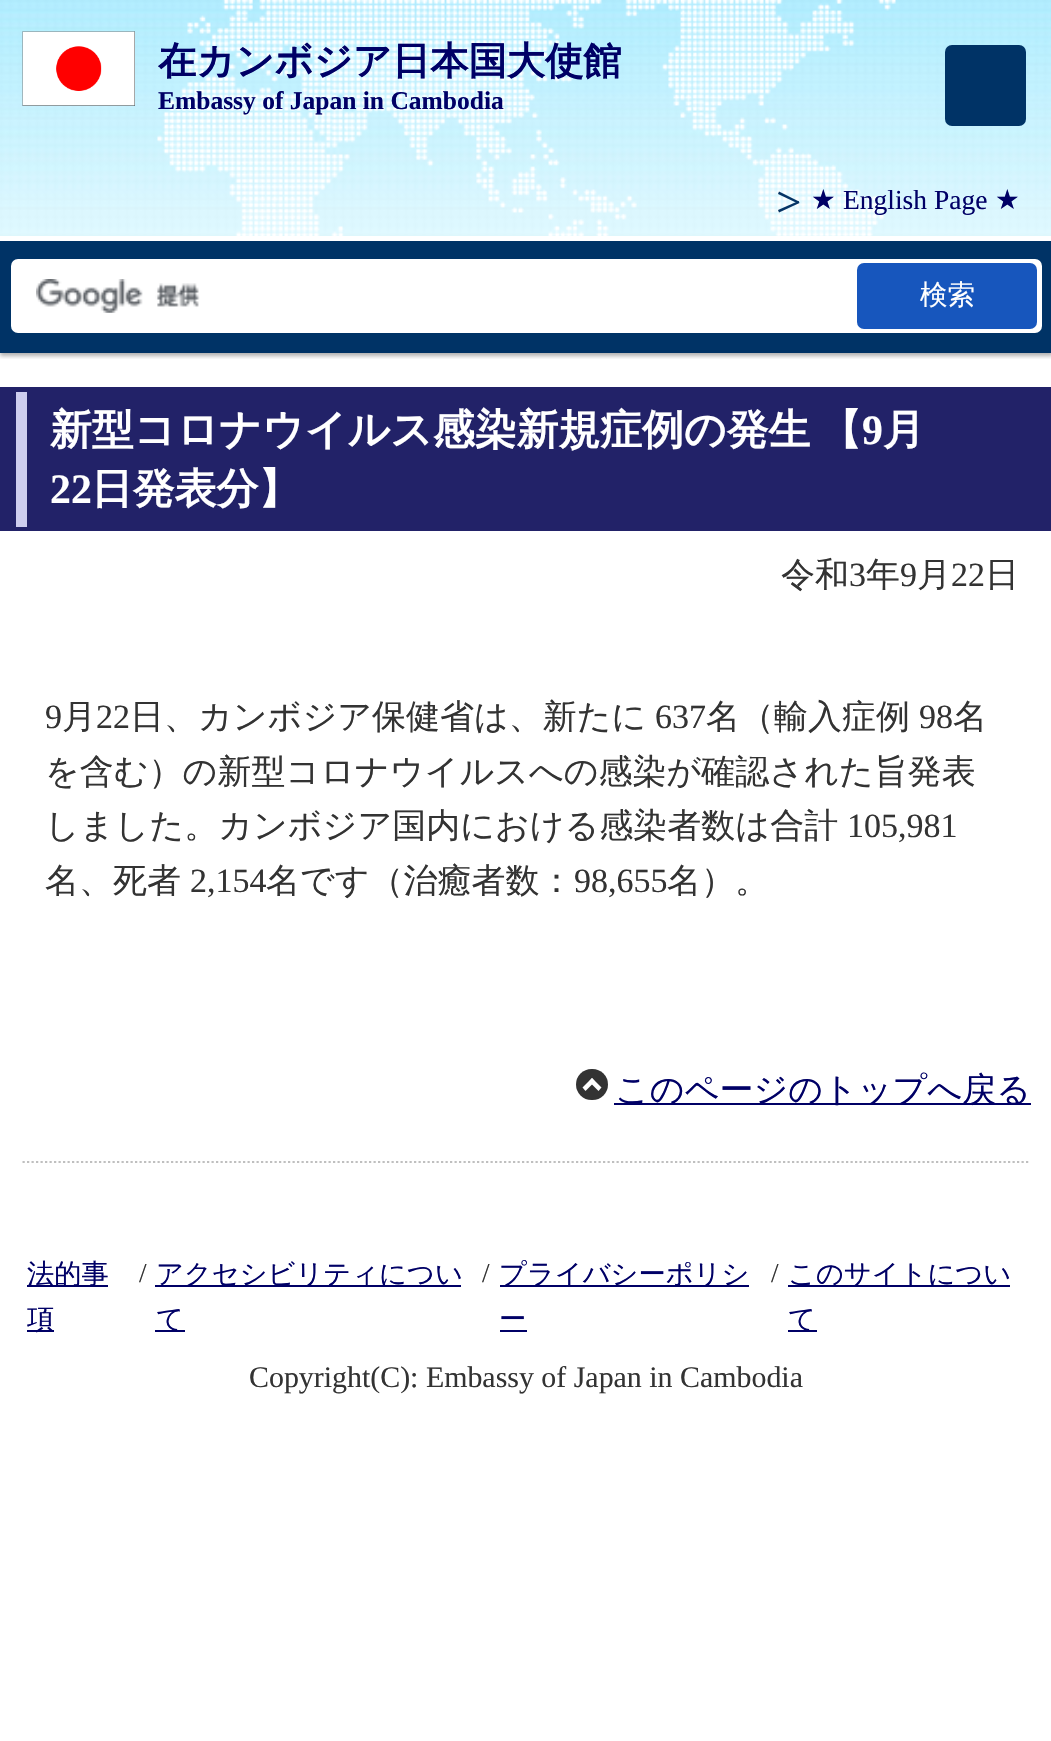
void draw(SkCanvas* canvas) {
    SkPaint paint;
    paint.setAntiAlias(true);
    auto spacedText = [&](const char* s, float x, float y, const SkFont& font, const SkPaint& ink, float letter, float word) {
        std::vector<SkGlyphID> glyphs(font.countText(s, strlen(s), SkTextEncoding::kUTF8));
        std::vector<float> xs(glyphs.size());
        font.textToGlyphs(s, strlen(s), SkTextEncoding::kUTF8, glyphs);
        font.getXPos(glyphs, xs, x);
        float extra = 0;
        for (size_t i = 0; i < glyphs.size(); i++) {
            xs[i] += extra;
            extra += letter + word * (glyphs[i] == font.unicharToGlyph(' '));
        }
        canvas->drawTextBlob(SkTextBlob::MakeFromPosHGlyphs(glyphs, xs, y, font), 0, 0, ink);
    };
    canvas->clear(0xFFFFFFFF);
    canvas->drawImageRect(SkImages::DeferredFromEncodedData(SkData::MakeFromFileName("img1.png")), SkRect::MakeXYWH(0, 0, 1051, 236), SkSamplingOptions());
    canvas->save();
    canvas->clipRect(SkRect::MakeXYWH(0, 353, 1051, 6));
    paint.setColor(0x4D000000);
    paint.setMaskFilter(SkMaskFilter::MakeBlur(kNormal_SkBlurStyle, 2));
    canvas->drawRect(SkRect::MakeXYWH(0, 2, 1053, 354), paint);
    paint.setMaskFilter(nullptr);
    canvas->restore();
    canvas->drawImageRect(SkImages::DeferredFromEncodedData(SkData::MakeFromFileName("img2.png")), SkRect::MakeXYWH(157, 0, 739, 236), SkSamplingOptions());
    canvas->drawImageRect(SkImages::DeferredFromEncodedData(SkData::MakeFromFileName("img3.png")), SkRect::MakeXYWH(22, 31, 113, 75), SkSamplingOptions());
    SkFont font1(fontMgr->matchFamilyStyle("WenQuanYi Zen Hei", SkFontStyle::Bold()), 38.25f);
    font1.setSubpixel(true);
    paint.setColor(0xFF000066);
    canvas->drawString("在カンボジア日本国大使館", 158, 74, font1, paint);
    SkFont font2(fontMgr->matchFamilyStyle("Liberation Serif", SkFontStyle::Bold()), 25.5f);
    font2.setSubpixel(true);
    canvas->drawString("Embassy of Japan in Cambodia", 158, 109, font2, paint);
    paint.setColor(0xFF003366);
    canvas->drawRoundRect(SkRect::MakeXYWH(945, 45, 81, 81), 7, 7, paint);
    paint.setColor(0xFF043465);
    canvas->drawPath(SkPathBuilder().moveTo(798, 203.5f).lineTo(778, 194).lineTo(779, 191.5f).lineTo(799, 201.5f).close().detach(), paint);
    SkFont font3(fontMgr->matchFamilyStyle("DejaVu Sans", SkFontStyle::Normal()), 27.5f);
    font3.setSubpixel(true);
    paint.setColor(0xFF000066);
    canvas->drawString("★", 811, 209, font3, paint);
    SkFont font4(fontMgr->matchFamilyStyle("Liberation Serif", SkFontStyle::Normal()), 27.5f);
    font4.setSubpixel(true);
    canvas->drawString("English Page", 843, 209, font4, paint);
    canvas->drawString("★", 995, 209, font3, paint);
    paint.setColor(0xFF043465);
    canvas->drawPath(SkPathBuilder().moveTo(799.5f, 203).lineTo(779, 212.5f).lineTo(778, 210).lineTo(798.5f, 201).close().detach(), paint);
    paint.setColor(0xFF003366);
    canvas->drawRect(SkRect::MakeXYWH(0, 241, 1051, 112), paint);
    paint.setColor(0xFFFFFFFF);
    canvas->drawRoundRect(SkRect::MakeXYWH(11, 259, 1031, 74), 7, 7, paint);
    canvas->drawImageRect(SkImages::DeferredFromEncodedData(SkData::MakeFromFileName("img4.png")), SkRect::MakeXYWH(36, 279, 164, 34), SkSamplingOptions());
    paint.setColor(0xFF1756BD);
    canvas->drawRoundRect(SkRect::MakeXYWH(857, 263, 180, 66), 7, 7, paint);
    SkFont font5(fontMgr->matchFamilyStyle("WenQuanYi Zen Hei", SkFontStyle(500, SkFontStyle::kNormal_Width, SkFontStyle::kUpright_Slant)), 27.5f);
    font5.setSubpixel(true);
    paint.setColor(0xFFFFFFFF);
    canvas->drawString("検索", 920, 304, font5, paint);
    paint.setColor(0xFF222268);
    canvas->drawRect(SkRect::MakeXYWH(0, 387, 1051, 144), paint);
    paint.setColor(0xFFCECEEF);
    canvas->drawRect(SkRect::MakeXYWH(16, 392, 11, 135), paint);
    SkFont font6(fontMgr->matchFamilyStyle("WenQuanYi Zen Hei", SkFontStyle::Bold()), 41.8f);
    font6.setSubpixel(true);
    paint.setColor(0xFFFFFFFF);
    spacedText("新型コロナウイルス感染新規症例の発生 【", 50, 444, font6, paint, 0, -3);
    SkFont font7(fontMgr->matchFamilyStyle("Liberation Serif", SkFontStyle::Bold()), 41.8f);
    font7.setSubpixel(true);
    canvas->drawString("9", 862, 444, font7, paint);
    canvas->drawString("月", 883, 444, font6, paint);
    canvas->drawString("22", 50, 503, font7, paint);
    canvas->drawString("日発表分】", 91, 503, font6, paint);
    SkFont font8(fontMgr->matchFamilyStyle("WenQuanYi Zen Hei", SkFontStyle(500, SkFontStyle::kNormal_Width, SkFontStyle::kUpright_Slant)), 34);
    font8.setSubpixel(true);
    paint.setColor(0xFF333333);
    canvas->drawString("令和", 781, 586, font8, paint);
    SkFont font9(fontMgr->matchFamilyStyle("Liberation Serif", SkFontStyle::Normal()), 34);
    font9.setSubpixel(true);
    canvas->drawString("3", 849, 586, font9, paint);
    canvas->drawString("年", 866, 586, font8, paint);
    canvas->drawString("9", 900, 586, font9, paint);
    canvas->drawString("月", 917, 586, font8, paint);
    canvas->drawString("22", 951, 586, font9, paint);
    canvas->drawString("日", 985, 586, font8, paint);
    canvas->drawString("9", 45, 728, font9, paint);
    canvas->drawString("月", 62, 728, font8, paint);
    canvas->drawString("22", 96, 728, font9, paint);
    canvas->drawString("日、カンボジア保健省は、新たに", 130, 728, font8, paint);
    canvas->drawString("637", 655, 728, font9, paint);
    canvas->drawString("名（輸入症例", 706, 728, font8, paint);
    canvas->drawString("98", 919, 728, font9, paint);
    canvas->drawString("名", 953, 728, font8, paint);
    canvas->drawString("を含む）の新型コロナウイルスへの感染が確認された旨発表", 45, 783, font8, paint);
    canvas->drawString("しました。カンボジア国内における感染者数は合計", 45, 837, font8, paint);
    canvas->drawString("105,981", 847, 837, font9, paint);
    canvas->drawString("名、死者", 45, 892, font8, paint);
    canvas->drawString("2,154", 190, 892, font9, paint);
    canvas->drawString("名です（治癒者数：", 266, 892, font8, paint);
    canvas->drawString("98,655", 574, 892, font9, paint);
    canvas->drawString("名）。", 667, 892, font8, paint);
    canvas->drawRoundRect(SkRect::MakeXYWH(576, 1069, 32, 31), 15.5f, 15.5f, paint);
    paint.setColor(0xFF000066);
    canvas->drawRect(SkRect::MakeXYWH(614, 1103, 417, 2), paint);
    canvas->drawString("このページのトップへ戻る", 615, 1101, font8, paint);
    paint.setColor(0xFFFFFFFF);
    canvas->drawPath(SkPathBuilder().moveTo(585.5f, 1091).lineTo(582.5f, 1087.5f).lineTo(592, 1078).lineTo(595, 1081.5f).close().detach(), paint);
    canvas->drawPath(SkPathBuilder().moveTo(598.5f, 1091).lineTo(589, 1081.5f).lineTo(592, 1078).lineTo(601.5f, 1087.5f).close().detach(), paint);
    paint.setStyle(SkPaint::kStroke_Style);
    paint.setStrokeWidth(2.2f);
    paint.setColor(0xFFBFBFBF);
    paint.setPathEffect(SkDashPathEffect::Make({{2.25f, 2.25f}}, 0));
    canvas->drawPath(SkPathBuilder().moveTo(22.5f, 1162).lineTo(1030.5f, 1162).detach(), paint);
    paint.setPathEffect(nullptr);
    paint.setStyle(SkPaint::kFill_Style);
    paint.setColor(0xFF000066);
    canvas->drawRect(SkRect::MakeXYWH(27, 1285, 81, 2), paint);
    SkFont font10(fontMgr->matchFamilyStyle("WenQuanYi Zen Hei", SkFontStyle(500, SkFontStyle::kNormal_Width, SkFontStyle::kUpright_Slant)), 27.25f);
    font10.setSubpixel(true);
    canvas->drawString("法的事", 27, 1283, font10, paint);
    canvas->drawRect(SkRect::MakeXYWH(27, 1330, 27, 2), paint);
    canvas->drawString("項", 27, 1328, font10, paint);
    SkFont font11(fontMgr->matchFamilyStyle("Liberation Serif", SkFontStyle::Normal()), 27.25f);
    font11.setSubpixel(true);
    paint.setColor(0xFF333333);
    canvas->drawString("/", 139, 1282, font11, paint);
    paint.setColor(0xFF000066);
    canvas->drawRect(SkRect::MakeXYWH(155, 1285, 306, 2), paint);
    canvas->drawString("アクセシビリティについ", 156, 1283, font10, paint);
    canvas->drawRect(SkRect::MakeXYWH(155, 1330, 30, 2), paint);
    canvas->drawString("て", 156, 1328, font10, paint);
    paint.setColor(0xFF333333);
    canvas->drawString("/", 482, 1282, font11, paint);
    paint.setColor(0xFF000066);
    canvas->drawRect(SkRect::MakeXYWH(500, 1285, 249, 2), paint);
    canvas->drawString("プライバシーポリシ", 499, 1283, font10, paint);
    canvas->drawString("ー", 499, 1328, font10, paint);
    canvas->drawRect(SkRect::MakeXYWH(500, 1330, 27, 2), paint);
    paint.setColor(0xFF333333);
    canvas->drawString("/", 771, 1282, font11, paint);
    paint.setColor(0xFF000066);
    canvas->drawRect(SkRect::MakeXYWH(788, 1285, 222, 2), paint);
    canvas->drawString("このサイトについ", 788, 1283, font10, paint);
    canvas->drawRect(SkRect::MakeXYWH(788, 1330, 29, 2), paint);
    canvas->drawString("て", 788, 1328, font10, paint);
    SkFont font12(fontMgr->matchFamilyStyle("Liberation Serif", SkFontStyle::Normal()), 29.9f);
    font12.setSubpixel(true);
    paint.setColor(0xFF333333);
    canvas->drawString("Copyright(C): Embassy of Japan in Cambodia", 249, 1387, font12, paint);
}
